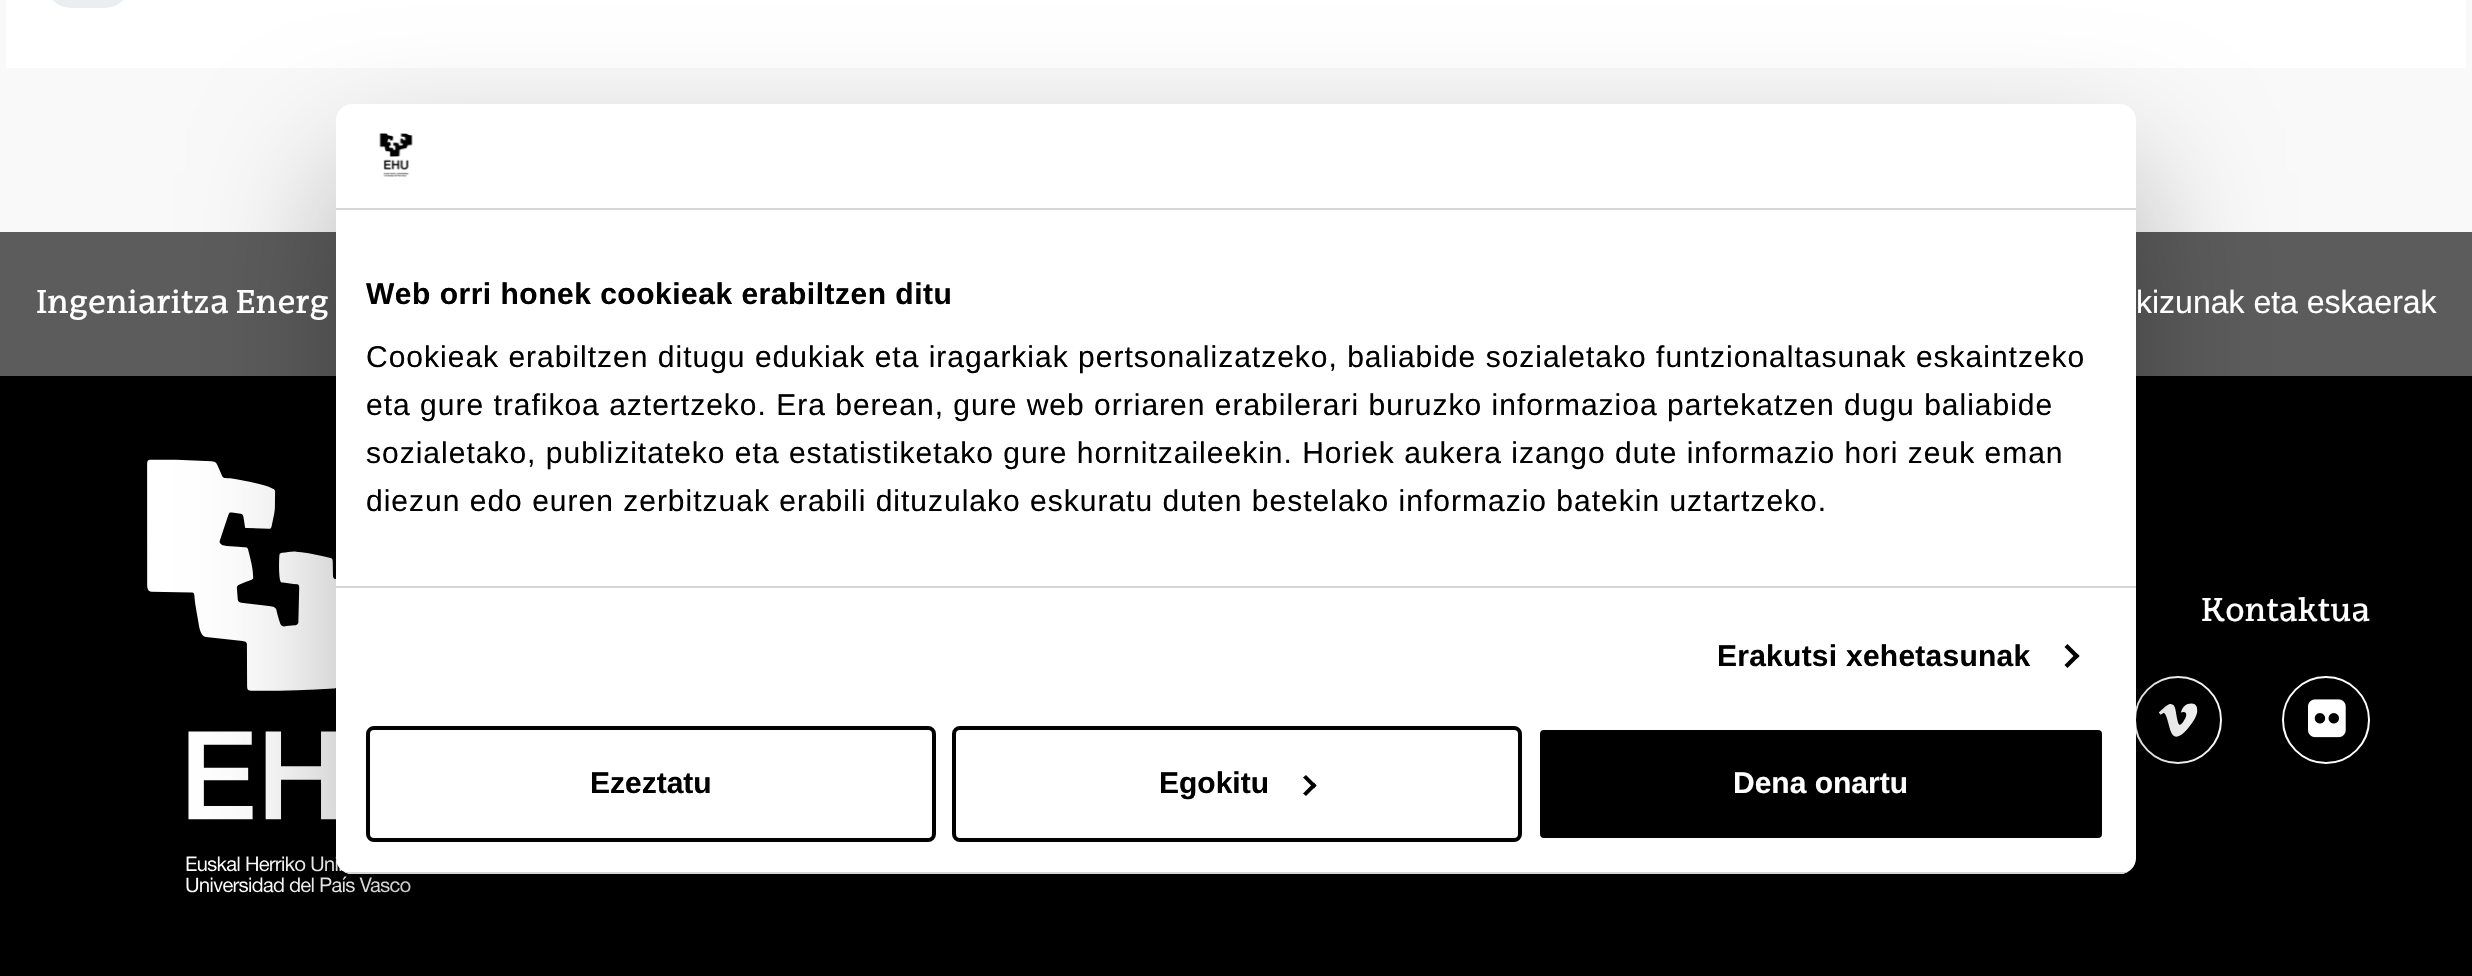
void draw(SkCanvas* canvas) {
    SkPaint paint;
    paint.setAntiAlias(true);
    auto spacedText = [&](const char* s, float x, float y, const SkFont& font, const SkPaint& ink, float letter, float word) {
        std::vector<SkGlyphID> glyphs(font.countText(s, strlen(s), SkTextEncoding::kUTF8));
        std::vector<float> xs(glyphs.size());
        font.textToGlyphs(s, strlen(s), SkTextEncoding::kUTF8, glyphs);
        font.getXPos(glyphs, xs, x);
        float extra = 0;
        for (size_t i = 0; i < glyphs.size(); i++) {
            xs[i] += extra;
            extra += letter + word * (glyphs[i] == font.unicharToGlyph(' '));
        }
        canvas->drawTextBlob(SkTextBlob::MakeFromPosHGlyphs(glyphs, xs, y, font), 0, 0, ink);
    };
    canvas->clear(0xFFF9F9F9);
    paint.setColor(0xFFFFFFFF);
    canvas->drawRect(SkRect::MakeXYWH(6, 0, 2460, 68), paint);
    paint.setColor(0xFF5C5C5C);
    canvas->drawRect(SkRect::MakeXYWH(0, 232, 2472, 144), paint);
    paint.setColor(0xFF000000);
    canvas->drawRect(SkRect::MakeXYWH(0, 376, 2472, 600), paint);
    canvas->drawImageRect(SkImages::DeferredFromEncodedData(SkData::MakeFromFileName("img2.png")), SkRect::MakeXYWH(147, 459, 318, 434), SkSamplingOptions());
    paint.setStyle(SkPaint::kStroke_Style);
    paint.setStrokeWidth(2);
    paint.setColor(0xFFFFFFFF);
    canvas->drawCircle(2178, 720, 43, paint);
    canvas->drawImageRect(SkImages::DeferredFromEncodedData(SkData::MakeFromFileName("img3.png")), SkRect::MakeXYWH(2158, 703, 40, 34), SkSamplingOptions());
    canvas->drawCircle(2326, 720, 43, paint);
    canvas->drawImageRect(SkImages::DeferredFromEncodedData(SkData::MakeFromFileName("img4.png")), SkRect::MakeXYWH(2308, 699, 38, 39), SkSamplingOptions());
    paint.setStyle(SkPaint::kFill_Style);
    paint.setColor(0x4D000000);
    paint.setMaskFilter(SkMaskFilter::MakeBlur(kNormal_SkBlurStyle, 68));
    canvas->drawRoundRect(SkRect::MakeXYWH(336, 168, 1800, 770), 16, 16, paint);
    paint.setMaskFilter(nullptr);
    paint.setColor(0xFFFFFFFF);
    canvas->drawRoundRect(SkRect::MakeXYWH(336, 104, 1800, 770), 16, 16, paint);
    paint.setColor(0xFFD6D6D6);
    canvas->drawRect(SkRect::MakeXYWH(336, 208, 1800, 2), paint);
    canvas->drawImageRect(SkImages::DeferredFromEncodedData(SkData::MakeFromFileName("img1.png")), SkRect::MakeXYWH(379, 133, 34, 44), SkSamplingOptions());
    canvas->drawRect(SkRect::MakeXYWH(336, 586, 1800, 2), paint);
    SkFont font1(fontMgr->matchFamilyStyle("Liberation Sans", SkFontStyle::Bold()), 30);
    font1.setSubpixel(true);
    paint.setColor(0xFF000000);
    spacedText("Web orri honek cookieak erabiltzen ditu", 366, 304, font1, paint, 0.5f, 0);
    SkFont font2(fontMgr->matchFamilyStyle("Liberation Sans", SkFontStyle::Normal()), 30);
    font2.setSubpixel(true);
    spacedText("Cookieak erabiltzen ditugu edukiak eta iragarkiak pertsonalizatzeko, baliabide sozialetako funtzionaltasunak eskaintzeko", 366, 367, font2, paint, 1, 0);
    spacedText("eta gure trafikoa aztertzeko. Era berean, gure web orriaren erabilerari buruzko informazioa partekatzen dugu baliabide", 366, 415, font2, paint, 1, 0);
    spacedText("sozialetako, publizitateko eta estatistiketako gure hornitzaileekin. Horiek aukera izango dute informazio hori zeuk eman", 366, 463, font2, paint, 1, 0);
    spacedText("diezun edo euren zerbitzuak erabili dituzulako eskuratu duten bestelako informazio batekin uztartzeko.", 366, 511, font2, paint, 1, 0);
    spacedText("Erakutsi xehetasunak", 1717, 666, font1, paint, 0.25f, 0);
    canvas->drawPath(SkPathBuilder().moveTo(2067.5f, 644).lineTo(2079.5f, 656).lineTo(2076.5f, 659).lineTo(2064.5f, 647).close().detach(), paint);
    canvas->drawPath(SkPathBuilder().moveTo(2076.5f, 653).lineTo(2079.5f, 656).lineTo(2067.5f, 668).lineTo(2064.5f, 665).close().detach(), paint);
    canvas->save();
    canvas->clipPath(SkPathBuilder().moveTo(352, 104).lineTo(2120, 104).cubicTo(2129, 104, 2136, 111, 2136, 120).lineTo(2136, 858).cubicTo(2136, 867, 2129, 874, 2120, 874).lineTo(352, 874).cubicTo(343, 874, 336, 867, 336, 858).lineTo(336, 120).cubicTo(336, 111, 343, 104, 352, 104).close().detach(), true);
    paint.setColor(0xFFD6D6D6);
    canvas->drawRect(SkRect::MakeXYWH(336, 872, 1800, 2), paint);
    canvas->restore();
    paint.setStyle(SkPaint::kStroke_Style);
    paint.setStrokeWidth(4);
    paint.setColor(0xFF000000);
    canvas->drawRoundRect(SkRect::MakeXYWH(368, 728, 566, 112), 6, 6, paint);
    paint.setStyle(SkPaint::kFill_Style);
    canvas->drawString("Ezeztatu", 590, 793, font1, paint);
    paint.setStyle(SkPaint::kStroke_Style);
    canvas->drawRoundRect(SkRect::MakeXYWH(954, 728, 566, 112), 6, 6, paint);
    paint.setStyle(SkPaint::kFill_Style);
    canvas->drawString("Egokitu", 1159, 793, font1, paint);
    canvas->drawPath(SkPathBuilder().moveTo(1306, 775).lineTo(1316.5f, 785.5f).lineTo(1314, 788.5f).lineTo(1303, 777.5f).close().detach(), paint);
    canvas->drawPath(SkPathBuilder().moveTo(1314, 782.5f).lineTo(1316.5f, 785.5f).lineTo(1306, 796).lineTo(1303, 793.5f).close().detach(), paint);
    canvas->drawRoundRect(SkRect::MakeXYWH(1538, 728, 566, 112), 6, 6, paint);
    paint.setStyle(SkPaint::kStroke_Style);
    paint.setColor(0xFFFFFFFF);
    canvas->drawRoundRect(SkRect::MakeXYWH(1538, 728, 566, 112), 6, 6, paint);
    paint.setStyle(SkPaint::kFill_Style);
    canvas->drawString("Dena onartu", 1733, 793, font1, paint);
    paint.setColor(0xFFEBEEF0);
    canvas->drawRoundRect(SkRect::MakeXYWH(46, -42, 84, 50), 42, 42, paint);
    SkFont font3(fontMgr->matchFamilyStyle("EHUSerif", SkFontStyle::Normal()), 32);
    font3.setSubpixel(true);
    paint.setColor(0xFFFFFFFF);
    canvas->drawString("Ingeniaritza Energ", 36, 313, font3, paint);
    SkFont font4(fontMgr->matchFamilyStyle("Liberation Sans", SkFontStyle::Normal()), 32);
    font4.setSubpixel(true);
    canvas->drawString("kizunak eta eskaerak", 2136, 313, font4, paint);
    canvas->drawString("Kontaktua", 2201, 621, font3, paint);
}
